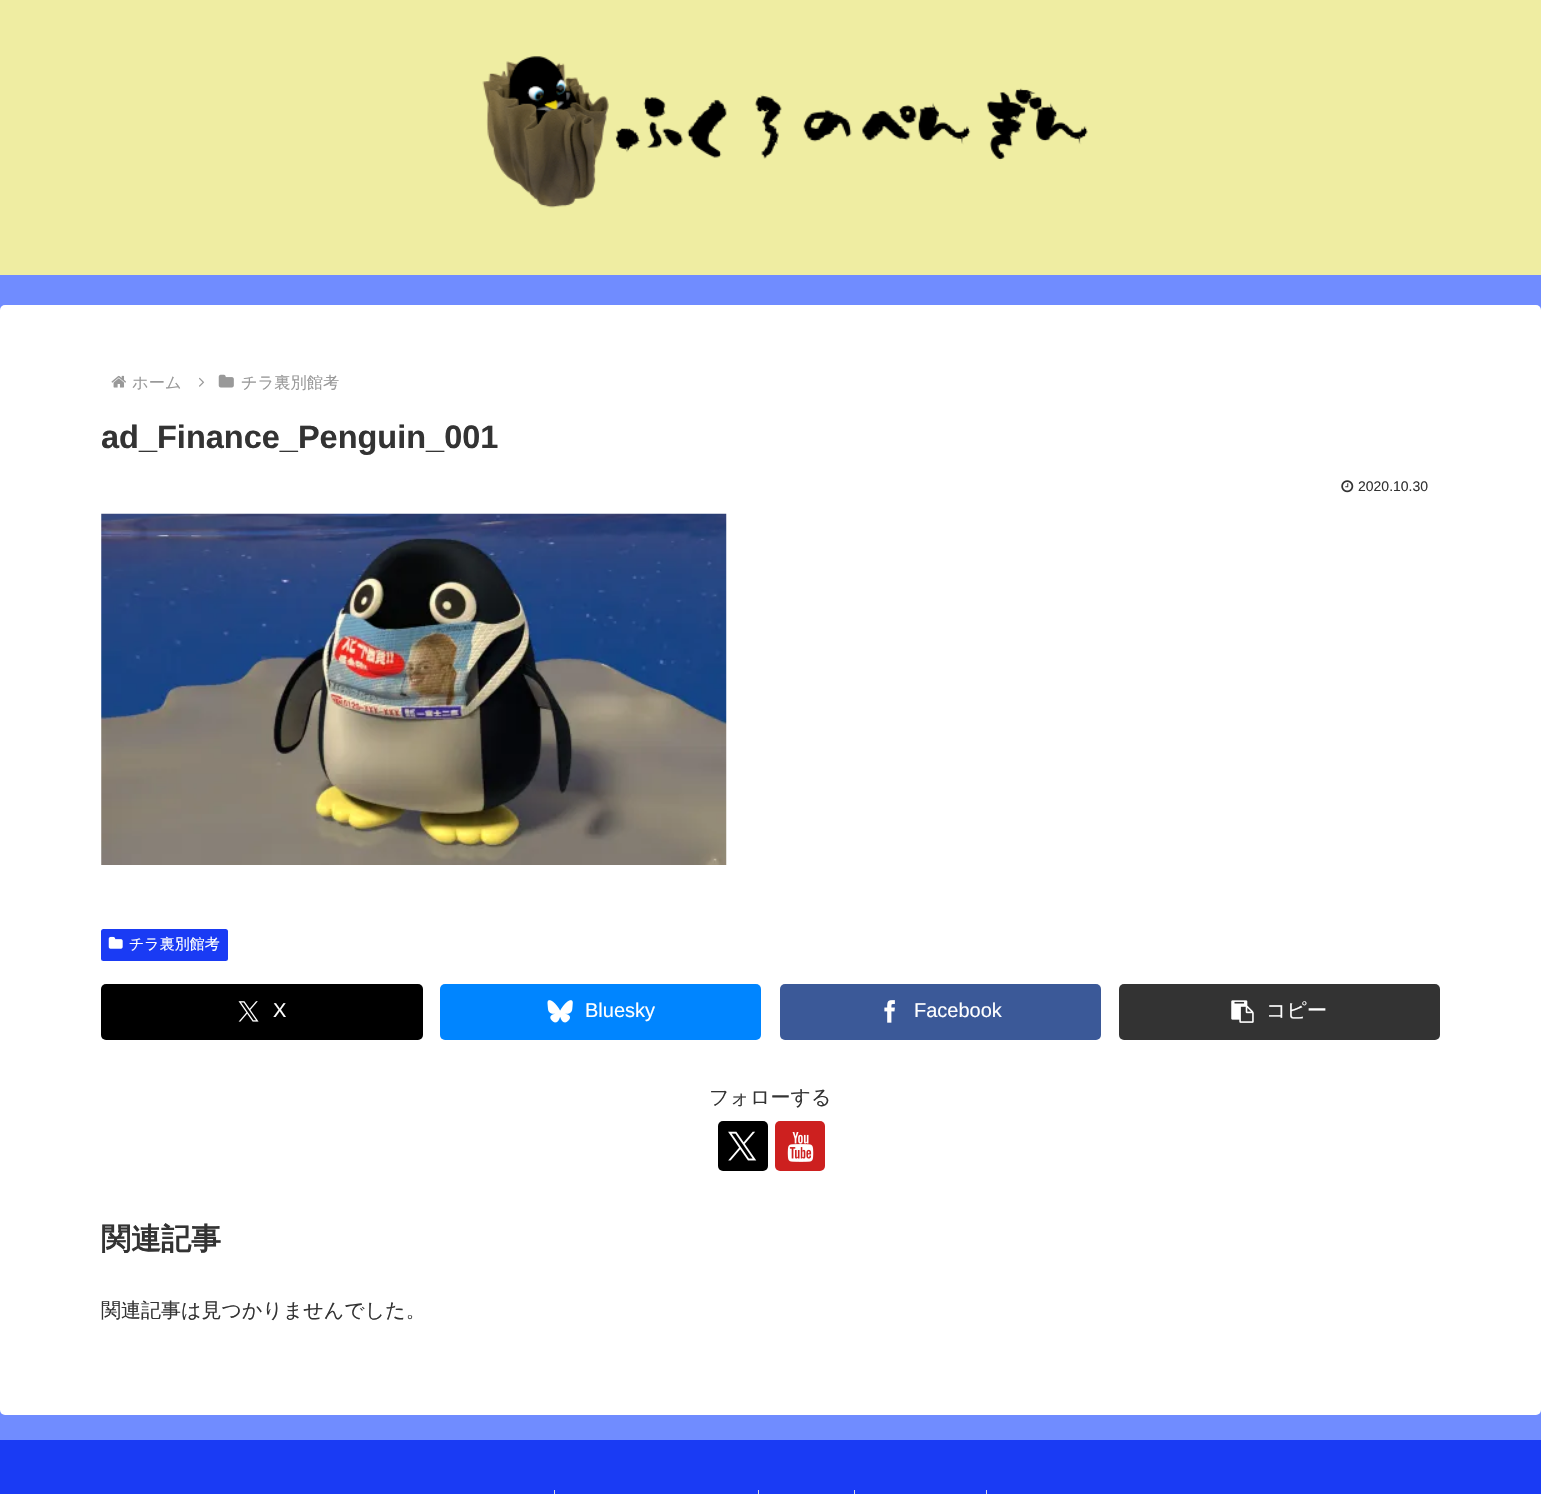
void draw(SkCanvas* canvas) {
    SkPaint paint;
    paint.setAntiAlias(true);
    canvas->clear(0xFF708CFF);
    paint.setColor(0xFFEFEDA2);
    canvas->drawRect(SkRect::MakeXYWH(0, 0, 1541, 275), paint);
    canvas->drawImageRect(SkImages::DeferredFromEncodedData(SkData::MakeFromFileName("img1.png")), SkRect::MakeXYWH(482, 56, 606, 152), SkSamplingOptions());
    paint.setColor(0xFFFFFFFF);
    canvas->drawRoundRect(SkRect::MakeXYWH(0, 305, 1541, 1110), 5, 5, paint);
    canvas->drawImageRect(SkImages::DeferredFromEncodedData(SkData::MakeFromFileName("img2.png")), SkRect::MakeXYWH(111, 375, 15, 13), SkSamplingOptions());
    SkFont font1(fontMgr->matchFamilyStyle("WenQuanYi Zen Hei", SkFontStyle(500, SkFontStyle::kNormal_Width, SkFontStyle::kUpright_Slant)), 16.25f);
    font1.setSubpixel(true);
    paint.setColor(0xFF999999);
    canvas->drawString("ホーム", 132, 388, font1, paint);
    canvas->drawImageRect(SkImages::DeferredFromEncodedData(SkData::MakeFromFileName("img3.png")), SkRect::MakeXYWH(199, 377, 6, 10), SkSamplingOptions());
    canvas->drawImageRect(SkImages::DeferredFromEncodedData(SkData::MakeFromFileName("img4.png")), SkRect::MakeXYWH(218, 374, 16, 14), SkSamplingOptions());
    canvas->drawString("チラ裏別館考", 241, 388, font1, paint);
    SkFont font2(fontMgr->matchFamilyStyle("Liberation Sans", SkFontStyle::Bold()), 32.5f);
    font2.setSubpixel(true);
    paint.setColor(0xFF333333);
    canvas->drawString("ad_Finance_Penguin_001", 101, 448, font2, paint);
    canvas->drawImageRect(SkImages::DeferredFromEncodedData(SkData::MakeFromFileName("img5.png")), SkRect::MakeXYWH(1341, 480, 13, 13), SkSamplingOptions());
    SkFont font3(fontMgr->matchFamilyStyle("Liberation Sans", SkFontStyle::Normal()), 14);
    font3.setSubpixel(true);
    canvas->drawString("2020.10.30", 1358, 491, font3, paint);
    canvas->drawImageRect(SkImages::DeferredFromEncodedData(SkData::MakeFromFileName("img6.png")), SkRect::MakeXYWH(101, 513, 626, 352), SkSamplingOptions());
    paint.setColor(0xFF1A3BF4);
    canvas->drawRoundRect(SkRect::MakeXYWH(101, 929, 127, 32), 2.5f, 2.5f, paint);
    canvas->drawImageRect(SkImages::DeferredFromEncodedData(SkData::MakeFromFileName("img7.png")), SkRect::MakeXYWH(108, 936, 15, 13), SkSamplingOptions());
    SkFont font4(fontMgr->matchFamilyStyle("WenQuanYi Zen Hei", SkFontStyle(500, SkFontStyle::kNormal_Width, SkFontStyle::kUpright_Slant)), 15);
    font4.setSubpixel(true);
    paint.setColor(0xFFFFFFFF);
    canvas->drawString("チラ裏別館考", 129, 949, font4, paint);
    paint.setColor(0xFF000000);
    canvas->drawRoundRect(SkRect::MakeXYWH(101, 984, 322, 56), 5, 5, paint);
    canvas->drawImageRect(SkImages::DeferredFromEncodedData(SkData::MakeFromFileName("img8.png")), SkRect::MakeXYWH(238, 1001, 21, 21), SkSamplingOptions());
    SkFont font5(fontMgr->matchFamilyStyle("Liberation Sans", SkFontStyle::Normal()), 20);
    font5.setSubpixel(true);
    paint.setColor(0xFFFFFFFF);
    canvas->drawString("X", 273, 1017, font5, paint);
    paint.setColor(0xFF0085FF);
    canvas->drawRoundRect(SkRect::MakeXYWH(440, 984, 321, 56), 5, 5, paint);
    canvas->drawImageRect(SkImages::DeferredFromEncodedData(SkData::MakeFromFileName("img9.png")), SkRect::MakeXYWH(547, 1000, 26, 23), SkSamplingOptions());
    paint.setColor(0xFFFFFFFF);
    canvas->drawString("Bluesky", 585, 1017, font5, paint);
    paint.setColor(0xFF3B5998);
    canvas->drawRoundRect(SkRect::MakeXYWH(780, 984, 321, 56), 5, 5, paint);
    canvas->drawImageRect(SkImages::DeferredFromEncodedData(SkData::MakeFromFileName("img10.png")), SkRect::MakeXYWH(884, 1000, 11, 23), SkSamplingOptions());
    paint.setColor(0xFFFFFFFF);
    canvas->drawString("Facebook", 914, 1017, font5, paint);
    paint.setColor(0xFF333333);
    canvas->drawRoundRect(SkRect::MakeXYWH(1119, 984, 321, 56), 5, 5, paint);
    canvas->drawImageRect(SkImages::DeferredFromEncodedData(SkData::MakeFromFileName("img11.png")), SkRect::MakeXYWH(1231, 1000, 23, 23), SkSamplingOptions());
    SkFont font6(fontMgr->matchFamilyStyle("WenQuanYi Zen Hei", SkFontStyle(500, SkFontStyle::kNormal_Width, SkFontStyle::kUpright_Slant)), 20);
    font6.setSubpixel(true);
    paint.setColor(0xFFFFFFFF);
    canvas->drawString("コピー", 1266, 1017, font6, paint);
    paint.setColor(0xFF333333);
    canvas->drawString("フォローする", 709, 1104, font6, paint);
    paint.setColor(0xFF000000);
    canvas->drawRoundRect(SkRect::MakeXYWH(718, 1121, 50, 50), 5, 5, paint);
    canvas->drawImageRect(SkImages::DeferredFromEncodedData(SkData::MakeFromFileName("img12.png")), SkRect::MakeXYWH(728, 1131, 29, 30), SkSamplingOptions());
    paint.setColor(0xFFCD201F);
    canvas->drawRoundRect(SkRect::MakeXYWH(775, 1121, 50, 50), 5, 5, paint);
    canvas->drawImageRect(SkImages::DeferredFromEncodedData(SkData::MakeFromFileName("img13.png")), SkRect::MakeXYWH(787, 1132, 27, 30), SkSamplingOptions());
    SkFont font7(fontMgr->matchFamilyStyle("WenQuanYi Zen Hei", SkFontStyle::Bold()), 30);
    font7.setSubpixel(true);
    paint.setColor(0xFF333333);
    canvas->drawString("関連記事", 101, 1249, font7, paint);
    canvas->drawString("関連記事は見つかりませんでした。", 101, 1317, font6, paint);
    paint.setColor(0xFF1A3BF4);
    canvas->drawRect(SkRect::MakeXYWH(0, 1440, 1541, 54), paint);
    paint.setColor(0xFFDDDDDD);
    canvas->drawRect(SkRect::MakeXYWH(554, 1490, 1, 4), paint);
    canvas->drawRect(SkRect::MakeXYWH(758, 1490, 1, 4), paint);
    canvas->drawRect(SkRect::MakeXYWH(986, 1490, 1, 4), paint);
    canvas->drawRect(SkRect::MakeXYWH(854, 1490, 1, 4), paint);
}
